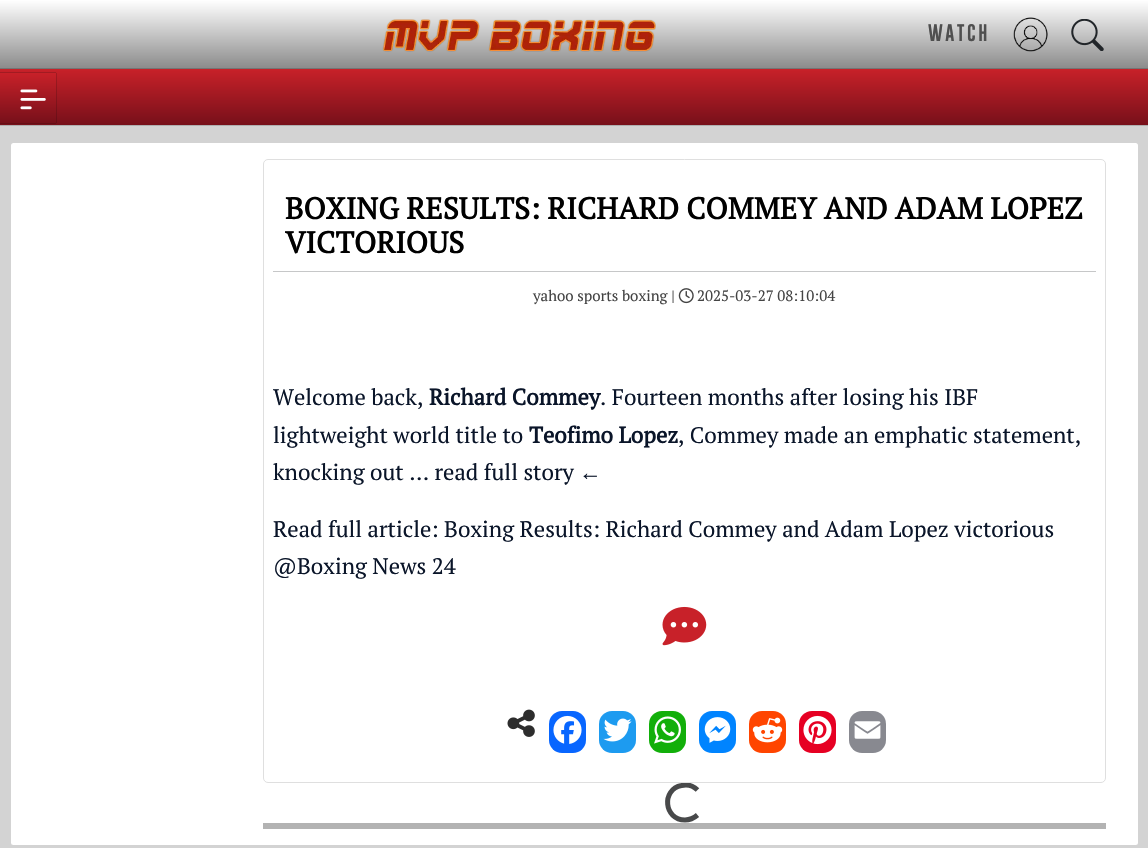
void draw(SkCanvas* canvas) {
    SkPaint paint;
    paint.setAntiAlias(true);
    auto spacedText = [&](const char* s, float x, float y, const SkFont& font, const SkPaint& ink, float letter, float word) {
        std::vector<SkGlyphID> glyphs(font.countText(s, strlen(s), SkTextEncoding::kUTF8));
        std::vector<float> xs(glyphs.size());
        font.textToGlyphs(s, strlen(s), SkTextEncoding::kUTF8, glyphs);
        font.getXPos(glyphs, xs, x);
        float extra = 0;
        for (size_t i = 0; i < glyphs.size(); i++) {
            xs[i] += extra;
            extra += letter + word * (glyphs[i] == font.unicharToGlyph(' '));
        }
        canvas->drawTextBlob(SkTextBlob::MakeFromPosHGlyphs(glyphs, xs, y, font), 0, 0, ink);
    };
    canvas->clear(0xFFD3D3D3);
    {
        const SkColor colors[] = {0xFF8A8A8A, 0xFFFFFFFF};
        const float stops[] = {0, 1};
        const SkPoint ends[] = {{574, 69}, {574, 0}};
        paint.setShader(SkGradientShader::MakeLinear(ends, colors, stops, 2, SkTileMode::kClamp));
        paint.setAlpha(255);
    }
    canvas->drawRect(SkRect::MakeXYWH(0, 0, 1148, 69), paint);
    canvas->drawImageRect(SkImages::DeferredFromEncodedData(SkData::MakeFromFileName("img1.png")), SkRect::MakeXYWH(382, 19, 274, 33), SkSamplingOptions());
    SkFont font1(fontMgr->matchFamilyStyle("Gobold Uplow", SkFontStyle::Bold()), 17.5f);
    font1.setSubpixel(true);
    paint.setShader(nullptr);
    paint.setColor(0xFF4F4F4F);
    spacedText("WATCH", 928, 41, font1, paint, 2.5f, 0);
    canvas->drawImageRect(SkImages::DeferredFromEncodedData(SkData::MakeFromFileName("img2.png")), SkRect::MakeXYWH(1013, 17, 35, 35), SkSamplingOptions());
    canvas->drawImageRect(SkImages::DeferredFromEncodedData(SkData::MakeFromFileName("img3.png")), SkRect::MakeXYWH(1071, 19, 33, 32), SkSamplingOptions());
    paint.setColor(0xFF000000);
    paint.setMaskFilter(SkMaskFilter::MakeBlur(kNormal_SkBlurStyle, 0.5f));
    canvas->drawRect(SkRect::MakeXYWH(0, 69, 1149, 56), paint);
    paint.setMaskFilter(nullptr);
    {
        const SkColor colors[] = {0xFFC82129, 0xFF77101A};
        const float stops[] = {0, 1};
        const SkPoint ends[] = {{574, 69}, {574, 125}};
        paint.setShader(SkGradientShader::MakeLinear(ends, colors, stops, 2, SkTileMode::kClamp));
        paint.setAlpha(255);
    }
    canvas->drawRect(SkRect::MakeXYWH(0, 69, 1148, 56), paint);
    paint.setShader(nullptr);
    paint.setColor(0xFF000000);
    paint.setMaskFilter(SkMaskFilter::MakeBlur(kNormal_SkBlurStyle, 0.5f));
    canvas->drawRect(SkRect::MakeXYWH(-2, 73, 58, 50), paint);
    paint.setMaskFilter(nullptr);
    {
        const SkColor colors[] = {0xFFC82129, 0xFF77101A};
        const float stops[] = {0, 1};
        const SkPoint ends[] = {{25, 73}, {25, 123}};
        paint.setShader(SkGradientShader::MakeLinear(ends, colors, stops, 2, SkTileMode::kClamp));
        paint.setAlpha(255);
    }
    canvas->drawRect(SkRect::MakeXYWH(0, 73, 56, 50), paint);
    canvas->drawImageRect(SkImages::DeferredFromEncodedData(SkData::MakeFromFileName("img4.png")), SkRect::MakeXYWH(20, 89, 26, 21), SkSamplingOptions());
    paint.setShader(nullptr);
    paint.setColor(0xFFFFFFFF);
    canvas->drawRoundRect(SkRect::MakeXYWH(11, 143, 1127, 702), 2.5f, 2.5f, paint);
    paint.setColor(0xFFB3B3B3);
    canvas->drawRect(SkRect::MakeXYWH(263, 823, 843, 6), paint);
    paint.setStyle(SkPaint::kStroke_Style);
    paint.setStrokeWidth(5);
    paint.setColor(0xFF48494A);
    canvas->drawPath(SkPathBuilder().moveTo(697.5f, 815).cubicTo(694, 818, 689.5f, 820, 685, 820).cubicTo(664, 820, 661, 789.5f, 681.5f, 785.5f).cubicTo(687.5f, 784, 693.5f, 786, 697.5f, 790).detach(), paint);
    paint.setStyle(SkPaint::kFill_Style);
    paint.setColor(0xFFFFFFFF);
    canvas->drawRoundRect(SkRect::MakeXYWH(263.5f, 159.5f, 842, 623), 4.5f, 4.5f, paint);
    paint.setStyle(SkPaint::kStroke_Style);
    paint.setStrokeWidth(1);
    paint.setColor(0xFFDFDFDF);
    canvas->drawRoundRect(SkRect::MakeXYWH(263.5f, 159.5f, 842, 623), 4.5f, 4.5f, paint);
    paint.setStyle(SkPaint::kFill_Style);
    paint.setColor(0xFFC6C7C8);
    canvas->drawRect(SkRect::MakeXYWH(273, 271, 823, 1), paint);
    SkFont font2(fontMgr->matchFamilyStyle("PT Serif", SkFontStyle::Bold()), 30);
    font2.setSubpixel(true);
    paint.setColor(0xFF000000);
    canvas->drawString("BOXING RESULTS: RICHARD COMMEY AND ADAM LOPEZ", 285, 219, font2, paint);
    canvas->drawString("VICTORIOUS", 285, 253, font2, paint);
    SkFont font3(fontMgr->matchFamilyStyle("PT Serif", SkFontStyle::Normal()), 15);
    font3.setSubpixel(true);
    paint.setColor(0xFF444444);
    canvas->drawString("yahoo sports boxing |", 533, 301, font3, paint);
    canvas->drawImageRect(SkImages::DeferredFromEncodedData(SkData::MakeFromFileName("img5.png")), SkRect::MakeXYWH(678, 288, 16, 16), SkSamplingOptions());
    canvas->drawString("2025-03-27 08:10:04", 697, 301, font3, paint);
    SkFont font4(fontMgr->matchFamilyStyle("PT Serif", SkFontStyle::Normal()), 22.5f);
    font4.setSubpixel(true);
    paint.setColor(0xFF0A1529);
    canvas->drawString("Welcome back,", 273, 405, font4, paint);
    SkFont font5(fontMgr->matchFamilyStyle("PT Serif", SkFontStyle::Bold()), 22.5f);
    font5.setSubpixel(true);
    canvas->drawString("Richard Commey", 429, 405, font5, paint);
    canvas->drawString(". Fourteen months after losing his IBF", 600, 405, font4, paint);
    canvas->drawString("lightweight world title to", 273, 443, font4, paint);
    canvas->drawString("Teofimo Lopez", 529, 443, font5, paint);
    canvas->drawString(", Commey made an emphatic statement,", 678, 443, font4, paint);
    canvas->drawString("knocking out … read full story", 273, 480, font4, paint);
    SkFont font6(fontMgr->matchFamilyStyle("Liberation Serif", SkFontStyle::Normal()), 22.5f);
    font6.setSubpixel(true);
    canvas->drawString("←", 579, 480, font6, paint);
    canvas->drawString("Read full article: Boxing Results: Richard Commey and Adam Lopez victorious", 273, 537, font4, paint);
    canvas->drawString("@Boxing News 24", 273, 574, font4, paint);
    canvas->drawImageRect(SkImages::DeferredFromEncodedData(SkData::MakeFromFileName("img6.png")), SkRect::MakeXYWH(662, 606, 45, 40), SkSamplingOptions());
    canvas->drawImageRect(SkImages::DeferredFromEncodedData(SkData::MakeFromFileName("img7.png")), SkRect::MakeXYWH(507, 709, 28, 28), SkSamplingOptions());
    paint.setColor(0xFF0866FF);
    canvas->drawRoundRect(SkRect::MakeXYWH(549, 711, 37, 42), 13, 13, paint);
    canvas->drawImageRect(SkImages::DeferredFromEncodedData(SkData::MakeFromFileName("img8.png")), SkRect::MakeXYWH(553, 715, 29, 29), SkSamplingOptions());
    paint.setColor(0xFF1D9BF0);
    canvas->drawRoundRect(SkRect::MakeXYWH(599, 711, 37, 42), 13, 13, paint);
    canvas->drawImageRect(SkImages::DeferredFromEncodedData(SkData::MakeFromFileName("img9.png")), SkRect::MakeXYWH(603, 718, 29, 24), SkSamplingOptions());
    paint.setColor(0xFF12AF0A);
    canvas->drawRoundRect(SkRect::MakeXYWH(649, 711, 37, 42), 13, 13, paint);
    canvas->drawImageRect(SkImages::DeferredFromEncodedData(SkData::MakeFromFileName("img10.png")), SkRect::MakeXYWH(654, 716, 27, 28), SkSamplingOptions());
    paint.setColor(0xFF0084FF);
    canvas->drawRoundRect(SkRect::MakeXYWH(699, 711, 37, 42), 13, 13, paint);
    canvas->drawImageRect(SkImages::DeferredFromEncodedData(SkData::MakeFromFileName("img11.png")), SkRect::MakeXYWH(704, 717, 27, 26), SkSamplingOptions());
    paint.setColor(0xFFFF4500);
    canvas->drawRoundRect(SkRect::MakeXYWH(749, 711, 37, 42), 13, 13, paint);
    canvas->drawImageRect(SkImages::DeferredFromEncodedData(SkData::MakeFromFileName("img12.png")), SkRect::MakeXYWH(752, 717, 31, 26), SkSamplingOptions());
    paint.setColor(0xFFE60023);
    canvas->drawRoundRect(SkRect::MakeXYWH(799, 711, 37, 42), 13, 13, paint);
    canvas->drawImageRect(SkImages::DeferredFromEncodedData(SkData::MakeFromFileName("img13.png")), SkRect::MakeXYWH(803, 715, 29, 30), SkSamplingOptions());
    paint.setColor(0xFF888990);
    canvas->drawRoundRect(SkRect::MakeXYWH(849, 711, 37, 42), 13, 13, paint);
    canvas->drawImageRect(SkImages::DeferredFromEncodedData(SkData::MakeFromFileName("img14.png")), SkRect::MakeXYWH(854, 721, 27, 18), SkSamplingOptions());
}
